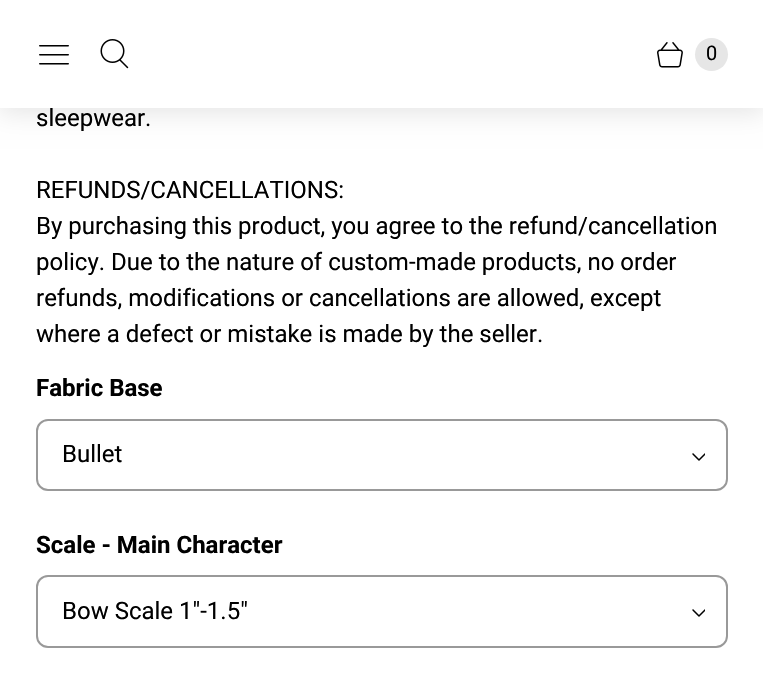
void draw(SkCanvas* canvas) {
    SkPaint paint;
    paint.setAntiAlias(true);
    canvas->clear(0xFFFFFFFF);
    paint.setColor(0x1A000000);
    paint.setMaskFilter(SkMaskFilter::MakeBlur(kNormal_SkBlurStyle, 12));
    canvas->drawRect(SkRect::MakeXYWH(-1, -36, 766, 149), paint);
    paint.setMaskFilter(nullptr);
    paint.setColor(0xFFFFFFFF);
    canvas->drawRect(SkRect::MakeXYWH(0, 0, 763, 108), paint);
    canvas->drawImageRect(SkImages::DeferredFromEncodedData(SkData::MakeFromFileName("img1.png")), SkRect::MakeXYWH(39, 45, 30, 20), SkSamplingOptions());
    canvas->drawImageRect(SkImages::DeferredFromEncodedData(SkData::MakeFromFileName("img2.png")), SkRect::MakeXYWH(100, 39, 29, 30), SkSamplingOptions());
    canvas->drawImageRect(SkImages::DeferredFromEncodedData(SkData::MakeFromFileName("img3.png")), SkRect::MakeXYWH(657, 42, 26, 26), SkSamplingOptions());
    paint.setColor(0xFFE6E6E6);
    canvas->drawCircle(711.5f, 54.5f, 16.5f, paint);
    SkFont font1(fontMgr->matchFamilyStyle("Roboto", SkFontStyle::Normal()), 20);
    font1.setSubpixel(true);
    paint.setColor(0xFF000000);
    canvas->drawString("0", 706, 60, font1, paint);
    SkFont font2(fontMgr->matchFamilyStyle("Roboto", SkFontStyle::Normal()), 24);
    font2.setSubpixel(true);
    canvas->drawString("sleepwear.", 36, 126, font2, paint);
    canvas->drawString("REFUNDS/CANCELLATIONS:", 36, 198, font2, paint);
    canvas->drawString("By purchasing this product, you agree to the refund/cancellation", 36, 234, font2, paint);
    canvas->drawString("policy. Due to the nature of custom-made products, no order", 36, 270, font2, paint);
    canvas->drawString("refunds, modifications or cancellations are allowed, except", 36, 306, font2, paint);
    canvas->drawString("where a defect or mistake is made by the seller.", 36, 342, font2, paint);
    SkFont font3(fontMgr->matchFamilyStyle("Roboto", SkFontStyle::Bold()), 24);
    font3.setSubpixel(true);
    canvas->drawString("Fabric Base", 36, 396, font3, paint);
    paint.setStyle(SkPaint::kStroke_Style);
    paint.setStrokeWidth(2);
    paint.setColor(0xFF999999);
    canvas->drawRoundRect(SkRect::MakeXYWH(37, 420, 690, 70), 11, 11, paint);
    paint.setStyle(SkPaint::kFill_Style);
    paint.setColor(0xFF000000);
    canvas->drawString("Bullet", 62, 462, font2, paint);
    canvas->drawImageRect(SkImages::DeferredFromEncodedData(SkData::MakeFromFileName("img4.png")), SkRect::MakeXYWH(692, 453, 13, 8), SkSamplingOptions());
    canvas->drawString("Scale - Main Character", 36, 553, font3, paint);
    paint.setStyle(SkPaint::kStroke_Style);
    paint.setColor(0xFF999999);
    canvas->drawRoundRect(SkRect::MakeXYWH(37, 576, 690, 71), 11, 11, paint);
    paint.setStyle(SkPaint::kFill_Style);
    paint.setColor(0xFF000000);
    canvas->drawString("Bow Scale 1\"-1.5\"", 62, 619, font2, paint);
    canvas->drawImageRect(SkImages::DeferredFromEncodedData(SkData::MakeFromFileName("img4.png")), SkRect::MakeXYWH(692, 609, 13, 8), SkSamplingOptions());
}
